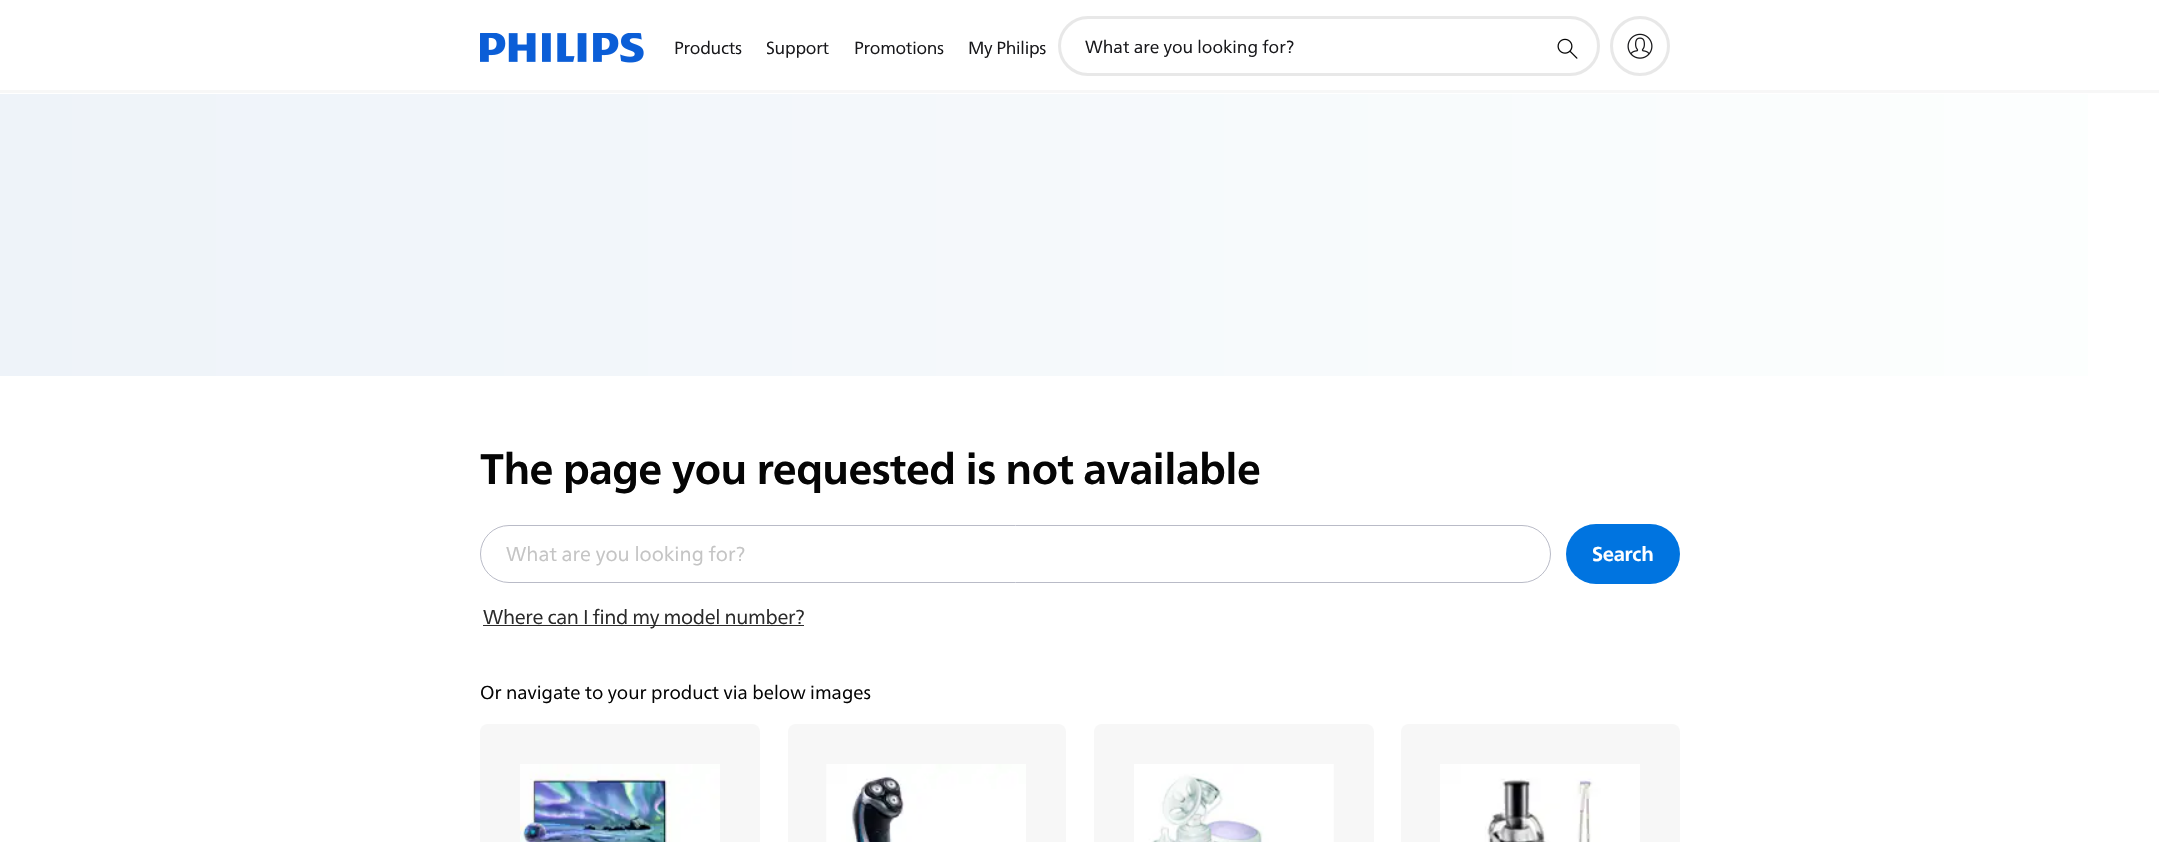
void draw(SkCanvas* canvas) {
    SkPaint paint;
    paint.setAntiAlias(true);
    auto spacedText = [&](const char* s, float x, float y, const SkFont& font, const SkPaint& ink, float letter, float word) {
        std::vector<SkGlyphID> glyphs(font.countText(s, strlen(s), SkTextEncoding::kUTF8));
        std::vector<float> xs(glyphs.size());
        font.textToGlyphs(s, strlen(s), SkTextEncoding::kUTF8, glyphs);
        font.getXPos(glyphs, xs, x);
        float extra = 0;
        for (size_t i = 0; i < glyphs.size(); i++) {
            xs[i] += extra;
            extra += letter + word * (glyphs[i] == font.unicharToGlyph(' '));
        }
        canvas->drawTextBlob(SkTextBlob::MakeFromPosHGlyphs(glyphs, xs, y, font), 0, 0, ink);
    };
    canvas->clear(0xFFFFFFFF);
    canvas->drawImageRect(SkImages::DeferredFromEncodedData(SkData::MakeFromFileName("img1.png")), SkRect::MakeXYWH(480, 33, 164, 30), SkSamplingOptions());
    SkFont font1(fontMgr->matchFamilyStyle("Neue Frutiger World", SkFontStyle::Normal()), 17.5f);
    font1.setSubpixel(true);
    paint.setColor(0xFF18181B);
    spacedText("Products", 674, 54, font1, paint, -0.25f, 0);
    spacedText("Support", 766, 54, font1, paint, -0.25f, 0);
    spacedText("Promotions", 854, 54, font1, paint, -0.25f, 0);
    spacedText("My Philips", 968, 54, font1, paint, -0.25f, 0);
    paint.setColor(0xFFF7F7F7);
    canvas->drawRect(SkRect::MakeXYWH(0, 90, 2159, 3), paint);
    paint.setStyle(SkPaint::kStroke_Style);
    paint.setStrokeWidth(3);
    paint.setColor(0xFFE8E8E8);
    canvas->drawRoundRect(SkRect::MakeXYWH(1059.5f, 17.5f, 539, 57), 28.5f, 28.5f, paint);
    paint.setStyle(SkPaint::kFill_Style);
    paint.setColor(0xFF18181B);
    canvas->drawString("What are you looking for?", 1085, 53, font1, paint);
    canvas->drawImageRect(SkImages::DeferredFromEncodedData(SkData::MakeFromFileName("img2.png")), SkRect::MakeXYWH(1557, 38, 21, 21), SkSamplingOptions());
    paint.setStyle(SkPaint::kStroke_Style);
    paint.setColor(0xFFE8E8E8);
    canvas->drawCircle(1640, 46, 28.5f, paint);
    canvas->drawImageRect(SkImages::DeferredFromEncodedData(SkData::MakeFromFileName("img3.png")), SkRect::MakeXYWH(1627, 33, 26, 26), SkSamplingOptions());
    paint.setStyle(SkPaint::kFill_Style);
    {
        const SkColor colors[] = {0xFFEEF3F9, 0xFFFDFFFE};
        const float stops[] = {0, 1};
        const SkPoint ends[] = {{0, 235}, {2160, 235}};
        paint.setShader(SkGradientShader::MakeLinear(ends, colors, stops, 2, SkTileMode::kClamp));
        paint.setAlpha(255);
    }
    canvas->drawRect(SkRect::MakeXYWH(0, 94, 2088, 282), paint);
    SkFont font2(fontMgr->matchFamilyStyle("Neue Frutiger World", SkFontStyle::Bold()), 42.5f);
    font2.setSubpixel(true);
    paint.setShader(nullptr);
    paint.setColor(0xFF050505);
    spacedText("The page you requested is not available", 480, 484, font2, paint, -0.6f, 0);
    paint.setStyle(SkPaint::kStroke_Style);
    paint.setStrokeWidth(1);
    paint.setColor(0xFFB9BBC7);
    canvas->drawRoundRect(SkRect::MakeXYWH(480.5f, 525.5f, 1070, 57), 28.5f, 28.5f, paint);
    SkFont font3(fontMgr->matchFamilyStyle("Neue Frutiger World", SkFontStyle::Normal()), 20);
    font3.setSubpixel(true);
    paint.setStyle(SkPaint::kFill_Style);
    paint.setColor(0xFFC4C4C4);
    canvas->drawString("What are you looking for?", 506, 561, font3, paint);
    paint.setColor(0xFF0074E0);
    canvas->drawRoundRect(SkRect::MakeXYWH(1566, 524, 114, 60), 30, 30, paint);
    SkFont font4(fontMgr->matchFamilyStyle("Neue Frutiger World", SkFontStyle::Bold()), 20);
    font4.setSubpixel(true);
    paint.setColor(0xFFFFFFFF);
    spacedText("Search", 1592, 561, font4, paint, -0.25f, 0);
    paint.setColor(0xFF2B2B2B);
    canvas->drawRect(SkRect::MakeXYWH(483, 625, 321, 1), paint);
    spacedText("Where can I find my model number?", 483, 624, font3, paint, -0.35f, 0);
    SkFont font5(fontMgr->matchFamilyStyle("Neue Frutiger World", SkFontStyle::Normal()), 18.75f);
    font5.setSubpixel(true);
    paint.setColor(0xFF050505);
    canvas->drawString("Or navigate to your product via below images", 480, 699, font5, paint);
    paint.setColor(0xFFF7F7F7);
    canvas->drawRoundRect(SkRect::MakeXYWH(480, 724, 280, 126), 8, 8, paint);
    canvas->drawImageRect(SkImages::DeferredFromEncodedData(SkData::MakeFromFileName("img4.png")), SkRect::MakeXYWH(520, 764, 200, 78), SkSamplingOptions());
    canvas->drawRoundRect(SkRect::MakeXYWH(788, 724, 278, 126), 8, 8, paint);
    canvas->drawImageRect(SkImages::DeferredFromEncodedData(SkData::MakeFromFileName("img5.png")), SkRect::MakeXYWH(826, 764, 200, 78), SkSamplingOptions());
    canvas->drawRoundRect(SkRect::MakeXYWH(1094, 724, 280, 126), 8, 8, paint);
    canvas->drawImageRect(SkImages::DeferredFromEncodedData(SkData::MakeFromFileName("img6.png")), SkRect::MakeXYWH(1134, 764, 200, 78), SkSamplingOptions());
    canvas->drawRoundRect(SkRect::MakeXYWH(1401, 724, 279, 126), 8, 8, paint);
    canvas->drawImageRect(SkImages::DeferredFromEncodedData(SkData::MakeFromFileName("img7.png")), SkRect::MakeXYWH(1440, 764, 200, 78), SkSamplingOptions());
}
